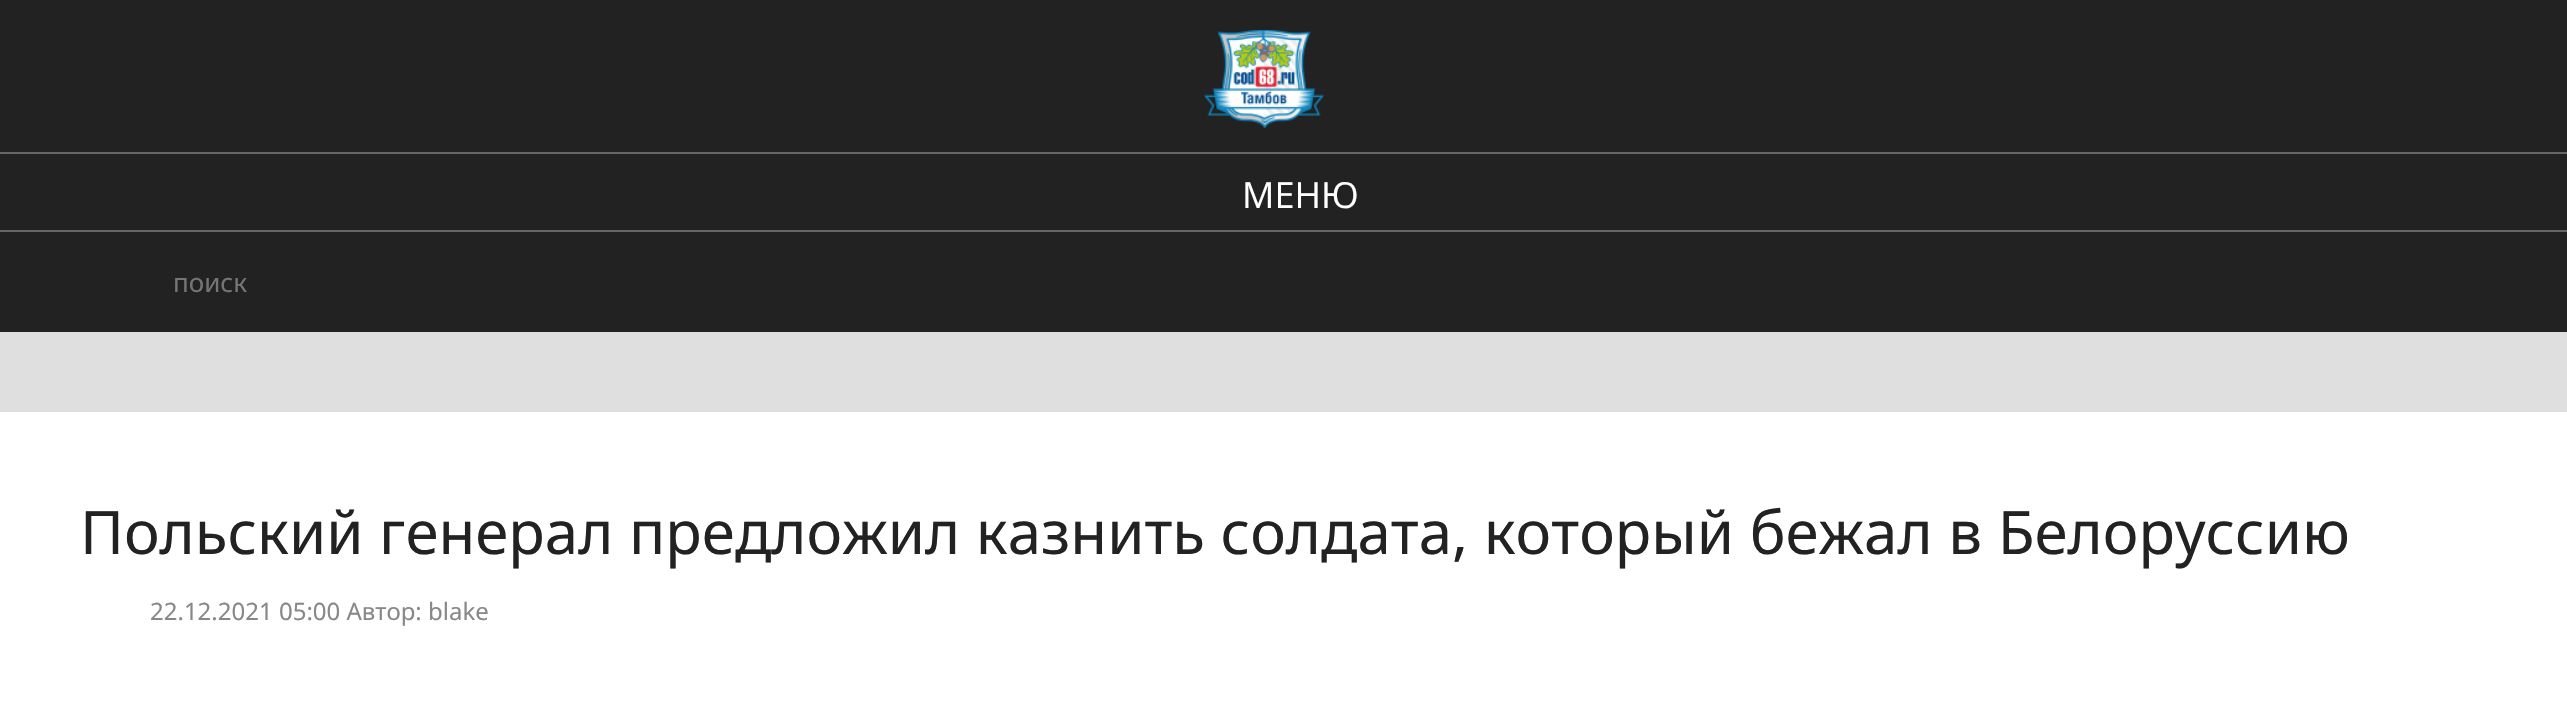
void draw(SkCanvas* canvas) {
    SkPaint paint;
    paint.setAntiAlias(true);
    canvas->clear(0xFFDFDFDF);
    paint.setColor(0xFF222222);
    canvas->drawRect(SkRect::MakeXYWH(0, 0, 2567, 332), paint);
    canvas->drawImageRect(SkImages::DeferredFromEncodedData(SkData::MakeFromFileName("img1.png")), SkRect::MakeXYWH(1204, 30, 120, 98), SkSamplingOptions());
    paint.setColor(0xFF666666);
    canvas->drawRect(SkRect::MakeXYWH(0, 152, 2567, 2), paint);
    canvas->drawRect(SkRect::MakeXYWH(0, 230, 2567, 2), paint);
    SkFont font1(fontMgr->matchFamilyStyle("Open Sans", SkFontStyle::Normal()), 36);
    font1.setSubpixel(true);
    paint.setColor(0xFFFFFFFF);
    canvas->drawString("МЕНЮ", 1242, 208, font1, paint);
    SkFont font2(fontMgr->matchFamilyStyle("Noto Sans", SkFontStyle::Normal()), 26);
    font2.setSubpixel(true);
    paint.setColor(0xFF757575);
    canvas->drawString("поиск", 173, 292, font2, paint);
    paint.setColor(0xFFFFFFFF);
    canvas->drawRect(SkRect::MakeXYWH(0, 412, 2567, 291), paint);
    SkFont font3(fontMgr->matchFamilyStyle("Noto Sans", SkFontStyle::Normal()), 60);
    font3.setSubpixel(true);
    paint.setColor(0xFF222222);
    canvas->drawString("Польский генерал предложил казнить солдата, который бежал в Белоруссию", 80, 554, font3, paint);
    SkFont font4(fontMgr->matchFamilyStyle("Noto Sans", SkFontStyle::Normal()), 24);
    font4.setSubpixel(true);
    paint.setColor(0xFF888888);
    canvas->drawString("22.12.2021 05:00 Автор: blake", 150, 620, font4, paint);
}
